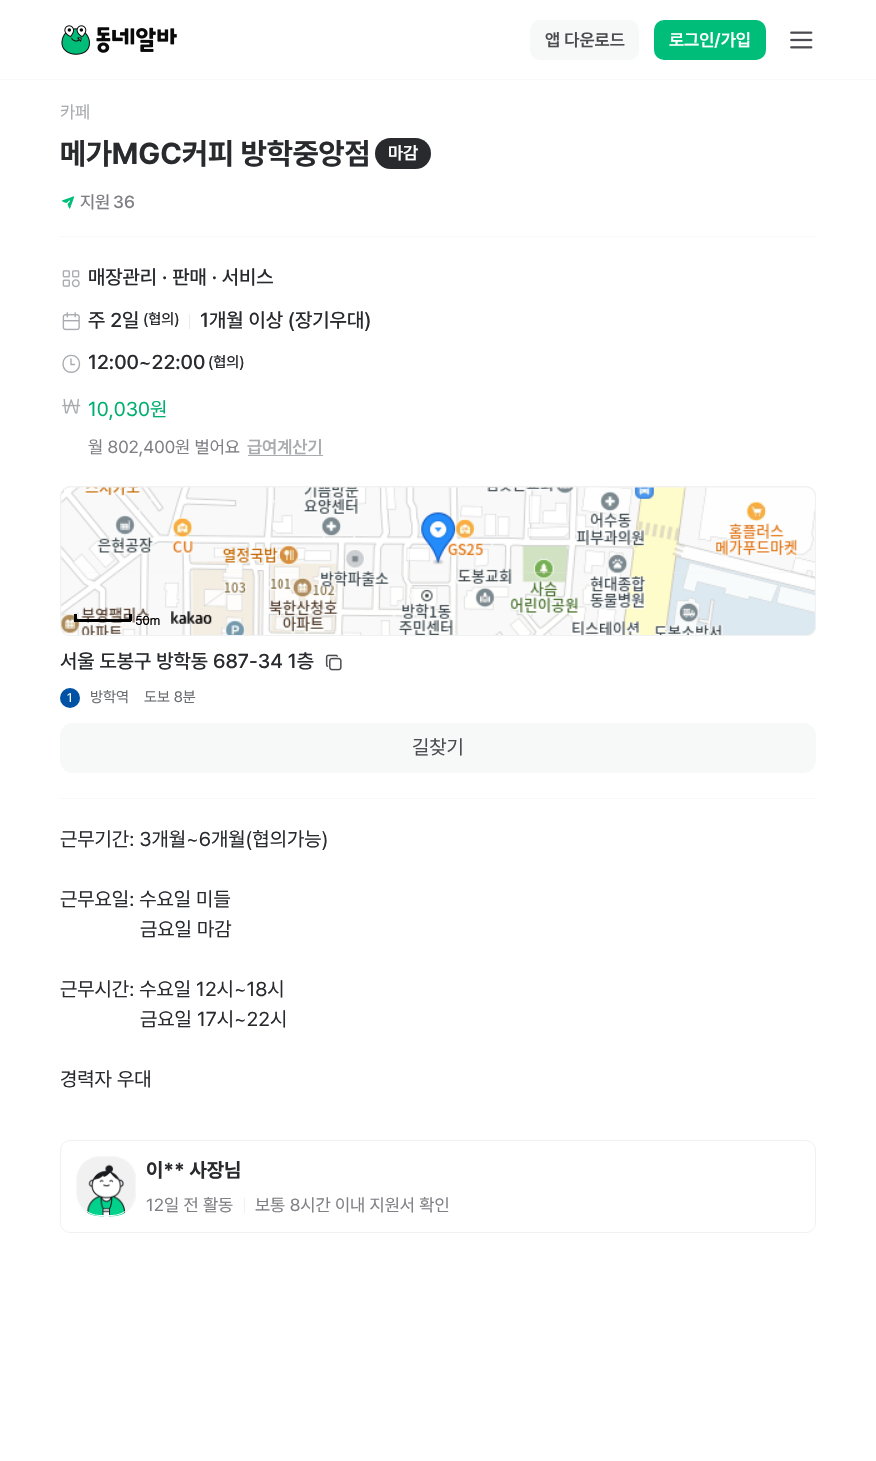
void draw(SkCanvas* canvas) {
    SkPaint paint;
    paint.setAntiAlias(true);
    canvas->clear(0xFFF7F8F8);
    paint.setColor(0xFFFFFFFF);
    canvas->drawRect(SkRect::MakeXYWH(0, 0, 876, 79), paint);
    canvas->drawImageRect(SkImages::DeferredFromEncodedData(SkData::MakeFromFileName("img1.png")), SkRect::MakeXYWH(61, 25, 116, 30), SkSamplingOptions());
    paint.setColor(0xFFF7F8F8);
    canvas->drawRoundRect(SkRect::MakeXYWH(530, 20, 109, 40), 10, 10, paint);
    SkFont font1(fontMgr->matchFamilyStyle("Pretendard", SkFontStyle(600, SkFontStyle::kNormal_Width, SkFontStyle::kUpright_Slant)), 17.5f);
    font1.setSubpixel(true);
    paint.setColor(0xFF4B4C50);
    canvas->drawString("앱 다운로드", 545, 46, font1, paint);
    paint.setColor(0xFF00BE7A);
    canvas->drawRoundRect(SkRect::MakeXYWH(654, 20, 112, 40), 10, 10, paint);
    paint.setColor(0xFFFFFFFF);
    canvas->drawString("로그인/가입", 669, 46, font1, paint);
    canvas->drawImageRect(SkImages::DeferredFromEncodedData(SkData::MakeFromFileName("img2.png")), SkRect::MakeXYWH(790, 31, 23, 18), SkSamplingOptions());
    canvas->drawRect(SkRect::MakeXYWH(0, 80, 876, 1381), paint);
    SkFont font2(fontMgr->matchFamilyStyle("Pretendard", SkFontStyle::Normal()), 17.5f);
    font2.setSubpixel(true);
    paint.setColor(0xFFA9ABAF);
    canvas->drawString("카페", 60, 118, font2, paint);
    SkFont font3(fontMgr->matchFamilyStyle("Pretendard", SkFontStyle::Bold()), 30);
    font3.setSubpixel(true);
    paint.setColor(0xFF292A2E);
    canvas->drawString("메가MGC커피 방학중앙점", 60, 164, font3, paint);
    canvas->drawRoundRect(SkRect::MakeXYWH(375, 138, 56, 31), 15.5f, 15.5f, paint);
    paint.setColor(0xFFFFFFFF);
    canvas->drawString("마감", 388, 159, font1, paint);
    canvas->drawImageRect(SkImages::DeferredFromEncodedData(SkData::MakeFromFileName("img3.png")), SkRect::MakeXYWH(61, 196, 14, 13), SkSamplingOptions());
    SkFont font4(fontMgr->matchFamilyStyle("Pretendard", SkFontStyle(500, SkFontStyle::kNormal_Width, SkFontStyle::kUpright_Slant)), 17.5f);
    font4.setSubpixel(true);
    paint.setColor(0xFF7F8085);
    canvas->drawString("지원", 80, 208, font4, paint);
    canvas->drawString("36", 113, 208, font4, paint);
    paint.setColor(0xFFF7F8F8);
    canvas->drawRect(SkRect::MakeXYWH(60, 236, 756, 1), paint);
    canvas->drawImageRect(SkImages::DeferredFromEncodedData(SkData::MakeFromFileName("img4.png")), SkRect::MakeXYWH(62, 270, 18, 18), SkSamplingOptions());
    SkFont font5(fontMgr->matchFamilyStyle("Pretendard", SkFontStyle(500, SkFontStyle::kNormal_Width, SkFontStyle::kUpright_Slant)), 20);
    font5.setSubpixel(true);
    paint.setColor(0xFF292A2E);
    canvas->drawString("매장관리 · 판매 · 서비스", 88, 284, font5, paint);
    canvas->drawImageRect(SkImages::DeferredFromEncodedData(SkData::MakeFromFileName("img5.png")), SkRect::MakeXYWH(62, 312, 18, 19), SkSamplingOptions());
    canvas->drawString("주 2일", 88, 327, font5, paint);
    SkFont font6(fontMgr->matchFamilyStyle("Pretendard", SkFontStyle(500, SkFontStyle::kNormal_Width, SkFontStyle::kUpright_Slant)), 15);
    font6.setSubpixel(true);
    canvas->drawString("(협의)", 143, 324, font6, paint);
    paint.setColor(0xFFE8EAED);
    canvas->drawRect(SkRect::MakeXYWH(189, 314, 1, 15), paint);
    paint.setColor(0xFF292A2E);
    canvas->drawString("1개월 이상 (장기우대)", 200, 327, font5, paint);
    paint.setStyle(SkPaint::kStroke_Style);
    paint.setStrokeWidth(1.4f);
    paint.setStrokeCap(SkPaint::kRound_Cap);
    paint.setStrokeJoin(SkPaint::kRound_Join);
    paint.setColor(0xFFA9ABAF);
    canvas->drawPath(SkPathBuilder().moveTo(74.5f, 364.5f).lineTo(71, 364.5f).lineTo(71, 359).moveTo(63, 364).cubicTo(63, 375, 79.5f, 375, 79.5f, 364).cubicTo(79.5f, 352.5f, 63, 352.5f, 63, 364).detach(), paint);
    paint.setStyle(SkPaint::kFill_Style);
    paint.setColor(0xFF292A2E);
    canvas->drawString("12:00~22:00", 88, 369, font5, paint);
    canvas->drawString("(협의)", 208, 367, font6, paint);
    canvas->drawImageRect(SkImages::DeferredFromEncodedData(SkData::MakeFromFileName("img6.png")), SkRect::MakeXYWH(62, 398, 19, 16), SkSamplingOptions());
    SkFont font7(fontMgr->matchFamilyStyle("Pretendard", SkFontStyle::Normal()), 20);
    font7.setSubpixel(true);
    paint.setColor(0xFF00AF70);
    canvas->drawString("10,030원", 88, 416, font7, paint);
    paint.setColor(0xFF7F8085);
    canvas->drawString("월 802,400원 벌어요", 88, 453, font2, paint);
    paint.setColor(0xFFA9ABAF);
    canvas->drawString("급여계산기", 247, 453, font1, paint);
    canvas->drawRect(SkRect::MakeXYWH(248, 455, 75, 1), paint);
    canvas->drawImageRect(SkImages::DeferredFromEncodedData(SkData::MakeFromFileName("img7.png")), SkRect::MakeXYWH(60, 486, 756, 150), SkSamplingOptions());
    paint.setStyle(SkPaint::kStroke_Style);
    paint.setStrokeWidth(1);
    paint.setStrokeCap(SkPaint::kButt_Cap);
    paint.setStrokeJoin(SkPaint::kMiter_Join);
    paint.setColor(0xFFEFF1F3);
    canvas->drawRoundRect(SkRect::MakeXYWH(60.5f, 486.5f, 755, 149), 9.5f, 9.5f, paint);
    canvas->drawImageRect(SkImages::DeferredFromEncodedData(SkData::MakeFromFileName("img11.png")), SkRect::MakeXYWH(61, 572, 219, 63), SkSamplingOptions());
    canvas->drawImageRect(SkImages::DeferredFromEncodedData(SkData::MakeFromFileName("img8.png")), SkRect::MakeXYWH(61, 487, 219, 86), SkSamplingOptions());
    canvas->drawImageRect(SkImages::DeferredFromEncodedData(SkData::MakeFromFileName("img12.png")), SkRect::MakeXYWH(280, 572, 320, 63), SkSamplingOptions());
    canvas->drawImageRect(SkImages::DeferredFromEncodedData(SkData::MakeFromFileName("img9.png")), SkRect::MakeXYWH(280, 487, 320, 86), SkSamplingOptions());
    canvas->drawImageRect(SkImages::DeferredFromEncodedData(SkData::MakeFromFileName("img13.png")), SkRect::MakeXYWH(600, 572, 215, 63), SkSamplingOptions());
    canvas->drawImageRect(SkImages::DeferredFromEncodedData(SkData::MakeFromFileName("img10.png")), SkRect::MakeXYWH(600, 487, 215, 86), SkSamplingOptions());
    canvas->drawImageRect(SkImages::DeferredFromEncodedData(SkData::MakeFromFileName("img14.png")), SkRect::MakeXYWH(421, 512, 35, 53), SkSamplingOptions());
    paint.setStyle(SkPaint::kFill_Style);
    paint.setColor(0xFF000000);
    canvas->drawRect(SkRect::MakeXYWH(129, 614, 3, 7), paint);
    canvas->drawRect(SkRect::MakeXYWH(74, 619, 57, 3), paint);
    canvas->drawRect(SkRect::MakeXYWH(74, 614, 3, 7), paint);
    SkFont font8(fontMgr->matchFamilyStyle("Dotum", SkFontStyle::Bold()), 12.5f);
    font8.setSubpixel(true);
    canvas->drawString("50m", 135, 625, font8, paint);
    canvas->drawImageRect(SkImages::DeferredFromEncodedData(SkData::MakeFromFileName("img15.png")), SkRect::MakeXYWH(171, 611, 41, 13), SkSamplingOptions());
    paint.setColor(0xFF292A2E);
    canvas->drawString("서울 도봉구 방학동 687-34 1층", 60, 668, font5, paint);
    canvas->drawImageRect(SkImages::DeferredFromEncodedData(SkData::MakeFromFileName("img16.png")), SkRect::MakeXYWH(325, 654, 17, 17), SkSamplingOptions());
    paint.setColor(0xFF0052A4);
    canvas->drawCircle(70, 698, 10, paint);
    SkFont font9(fontMgr->matchFamilyStyle("Pretendard", SkFontStyle::Normal()), 12.5f);
    font9.setSubpixel(true);
    paint.setColor(0xFFFFFFFF);
    canvas->drawString("1", 67, 702, font9, paint);
    SkFont font10(fontMgr->matchFamilyStyle("Pretendard", SkFontStyle::Normal()), 15);
    font10.setSubpixel(true);
    paint.setColor(0xFF6A6C70);
    canvas->drawString("방학역", 90, 702, font10, paint);
    canvas->drawString("도보 8분", 144, 702, font10, paint);
    paint.setColor(0xFFF7F8F8);
    canvas->drawRoundRect(SkRect::MakeXYWH(60, 723, 756, 50), 13, 13, paint);
    paint.setColor(0xFF4B4C50);
    canvas->drawString("길찾기", 412, 754, font7, paint);
    paint.setColor(0xFFF7F8F8);
    canvas->drawRect(SkRect::MakeXYWH(60, 798, 756, 1), paint);
    paint.setColor(0xFF292A2E);
    canvas->drawString("근무기간: 3개월~6개월(협의가능)", 60, 846, font7, paint);
    canvas->drawString("근무요일: 수요일 미들", 60, 906, font7, paint);
    canvas->drawString("금요일 마감", 140, 936, font7, paint);
    canvas->drawString("근무시간: 수요일 12시~18시", 60, 996, font7, paint);
    canvas->drawString("금요일 17시~22시", 140, 1026, font7, paint);
    canvas->drawString("경력자 우대", 60, 1086, font7, paint);
    paint.setStyle(SkPaint::kStroke_Style);
    paint.setColor(0xFFEFF1F3);
    canvas->drawRoundRect(SkRect::MakeXYWH(60.5f, 1140.5f, 755, 92), 9.5f, 9.5f, paint);
    canvas->drawImageRect(SkImages::DeferredFromEncodedData(SkData::MakeFromFileName("img17.png")), SkRect::MakeXYWH(76, 1156, 60, 61), SkSamplingOptions());
    paint.setColor(0xFFF7F8F8);
    canvas->drawRoundRect(SkRect::MakeXYWH(76.5f, 1156.5f, 59, 59), 23.5f, 23.5f, paint);
    SkFont font11(fontMgr->matchFamilyStyle("Pretendard", SkFontStyle::Bold()), 20);
    font11.setSubpixel(true);
    paint.setStyle(SkPaint::kFill_Style);
    paint.setColor(0xFF292A2E);
    canvas->drawString("이** 사장님", 146, 1177, font11, paint);
    paint.setColor(0xFF7F8085);
    canvas->drawString("12일 전 활동", 146, 1211, font2, paint);
    paint.setColor(0xFFEFF1F3);
    canvas->drawRect(SkRect::MakeXYWH(244, 1198, 1, 15), paint);
    paint.setColor(0xFF7F8085);
    canvas->drawString("보통 8시간 이내 지원서 확인", 255, 1211, font2, paint);
}
